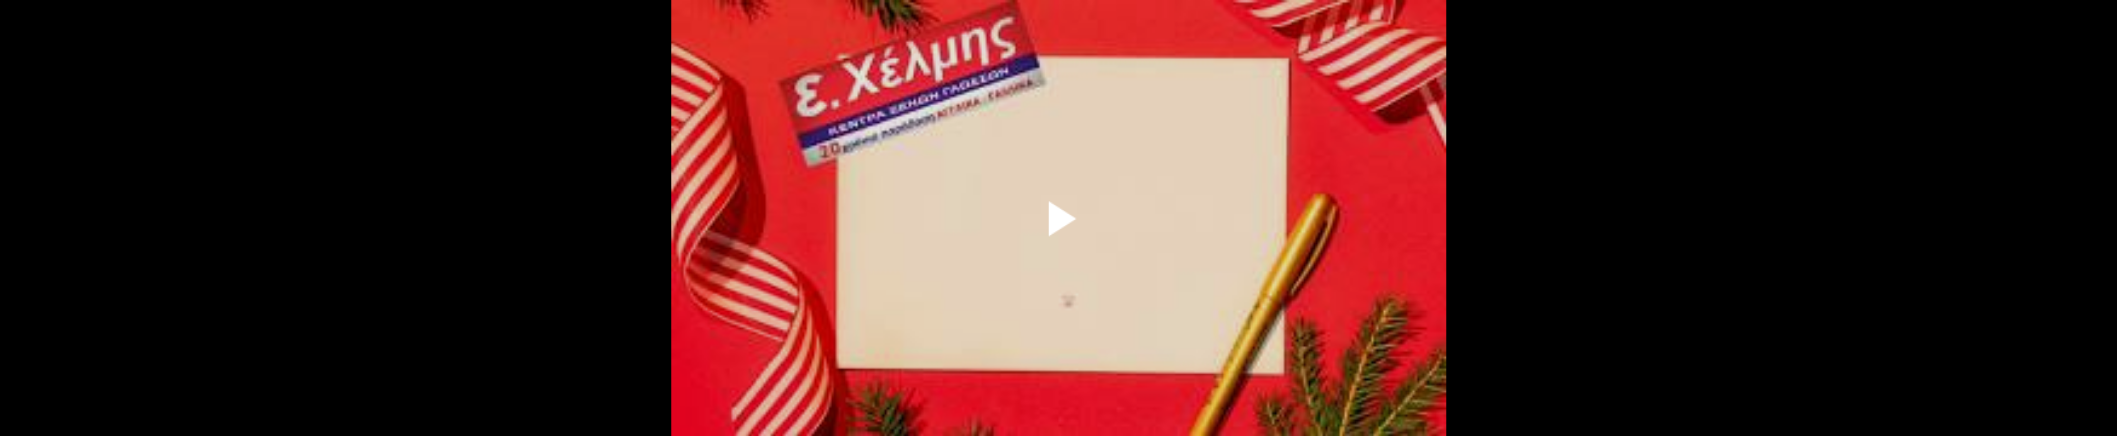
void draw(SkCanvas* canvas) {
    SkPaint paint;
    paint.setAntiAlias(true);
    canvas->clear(0xFF000000);
    canvas->drawImageRect(SkImages::DeferredFromEncodedData(SkData::MakeFromFileName("img1.png")), SkRect::MakeXYWH(671, 0, 776, 436), SkSamplingOptions());
    canvas->drawImageRect(SkImages::DeferredFromEncodedData(SkData::MakeFromFileName("img2.png")), SkRect::MakeXYWH(1048, 201, 29, 36), SkSamplingOptions());
}
